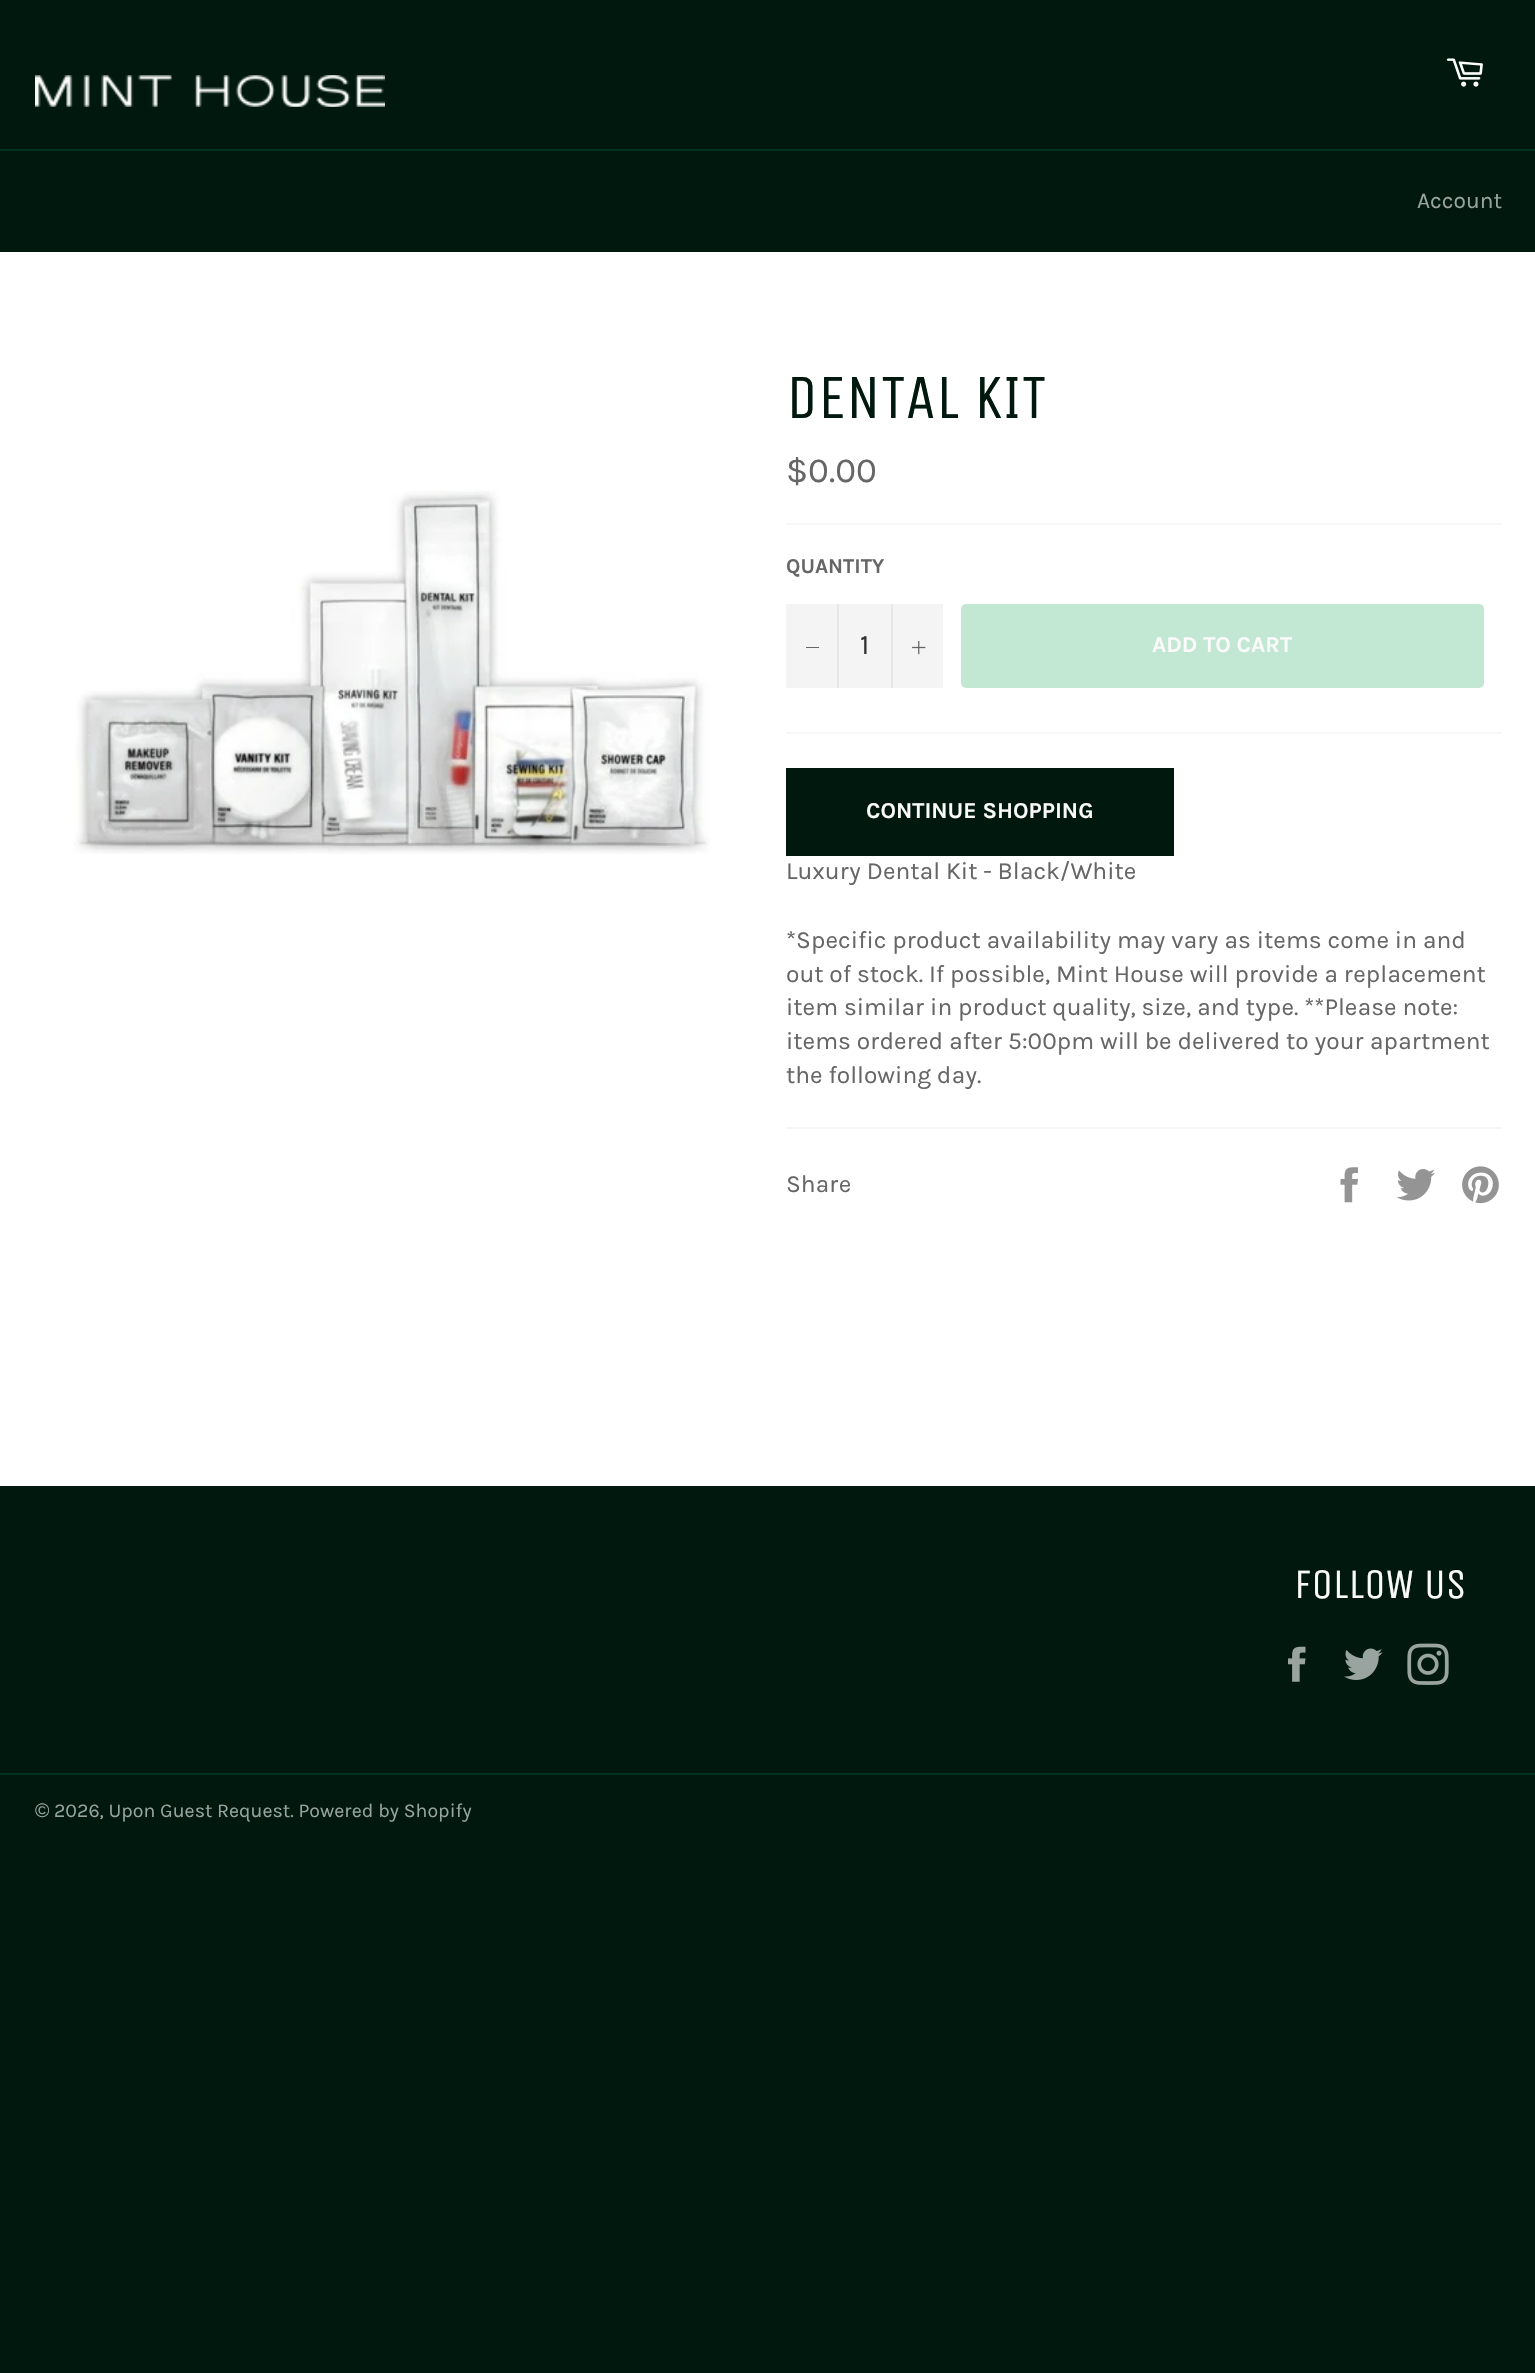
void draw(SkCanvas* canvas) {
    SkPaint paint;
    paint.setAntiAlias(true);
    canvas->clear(0xFF00180E);
    canvas->drawImageRect(SkImages::DeferredFromEncodedData(SkData::MakeFromFileName("img1.png")), SkRect::MakeXYWH(35, 75, 350, 32), SkSamplingOptions());
    canvas->drawImageRect(SkImages::DeferredFromEncodedData(SkData::MakeFromFileName("img2.png")), SkRect::MakeXYWH(1446, 58, 37, 29), SkSamplingOptions());
    paint.setColor(0xFF00321D);
    canvas->drawRect(SkRect::MakeXYWH(0, 149, 1535, 2), paint);
    SkFont font1(fontMgr->matchFamilyStyle("Karla", SkFontStyle::Normal()), 22.75f);
    font1.setSubpixel(true);
    paint.setColor(0xFF99A39F);
    canvas->drawString("Account", 1417, 208, font1, paint);
    paint.setColor(0xFFFFFFFF);
    canvas->drawRect(SkRect::MakeXYWH(0, 252, 1535, 1234), paint);
    canvas->drawImageRect(SkImages::DeferredFromEncodedData(SkData::MakeFromFileName("img3.png")), SkRect::MakeXYWH(73, 490, 637, 364), SkSamplingOptions());
    SkFont font2(fontMgr->matchFamilyStyle("Unica One", SkFontStyle::Normal()), 63);
    font2.setSubpixel(true);
    paint.setColor(0xFF00180E);
    canvas->drawString("DENTAL KIT", 786, 418, font2, paint);
    SkFont font3(fontMgr->matchFamilyStyle("Karla", SkFontStyle::Normal()), 35);
    font3.setSubpixel(true);
    paint.setColor(0xFF666666);
    canvas->drawString("$0.00", 786, 482, font3, paint);
    paint.setColor(0xFFF7F7F7);
    canvas->drawRect(SkRect::MakeXYWH(786, 523, 716, 2), paint);
    SkFont font4(fontMgr->matchFamilyStyle("Karla", SkFontStyle::Bold()), 21);
    font4.setSubpixel(true);
    paint.setColor(0xFF666666);
    canvas->drawString("QUANTITY", 786, 573, font4, paint);
    paint.setColor(0xFFF4F4F4);
    canvas->drawRect(SkRect::MakeXYWH(786, 604, 157, 84), paint);
    paint.setColor(0xFFE7E7E7);
    canvas->drawRect(SkRect::MakeXYWH(837, 604, 2, 84), paint);
    paint.setColor(0xFF666666);
    canvas->drawRect(SkRect::MakeXYWH(806, 647, 13, 1), paint);
    SkFont font5(fontMgr->matchFamilyStyle("Karla", SkFontStyle::Normal()), 28);
    font5.setSubpixel(true);
    paint.setColor(0xFF333333);
    canvas->drawString("1", 860, 654, font5, paint);
    paint.setColor(0xFFE7E7E7);
    canvas->drawRect(SkRect::MakeXYWH(891, 604, 2, 84), paint);
    canvas->drawImageRect(SkImages::DeferredFromEncodedData(SkData::MakeFromFileName("img4.png")), SkRect::MakeXYWH(912, 641, 14, 14), SkSamplingOptions());
    paint.setColor(0xFFC2E7D3);
    canvas->drawRoundRect(SkRect::MakeXYWH(961, 604, 523, 84), 5, 5, paint);
    SkFont font6(fontMgr->matchFamilyStyle("Karla", SkFontStyle::Bold()), 22.75f);
    font6.setSubpixel(true);
    paint.setColor(0xFFFAFAFA);
    canvas->drawString("ADD TO CART", 1152, 652, font6, paint);
    paint.setColor(0xFFF7F7F7);
    canvas->drawRect(SkRect::MakeXYWH(786, 732, 716, 2), paint);
    paint.setColor(0xFF00180E);
    canvas->drawRect(SkRect::MakeXYWH(786, 768, 388, 88), paint);
    paint.setColor(0xFFFAFAFA);
    canvas->drawString("CONTINUE SHOPPING", 866, 818, font6, paint);
    SkFont font7(fontMgr->matchFamilyStyle("Karla", SkFontStyle::Normal()), 24.5f);
    font7.setSubpixel(true);
    paint.setColor(0xFF666666);
    canvas->drawString("Luxury Dental Kit - Black/White", 786, 879, font7, paint);
    canvas->drawString("*Specific product availability may vary as items come in and", 786, 948, font7, paint);
    canvas->drawString("out of stock. If possible, Mint House will provide a replacement", 786, 982, font7, paint);
    canvas->drawString("item similar in product quality, size, and type. **Please note:", 786, 1015, font7, paint);
    canvas->drawString("items ordered after 5:00pm will be delivered to your apartment", 786, 1049, font7, paint);
    canvas->drawString("the following day.", 786, 1083, font7, paint);
    paint.setColor(0xFFF7F7F7);
    canvas->drawRect(SkRect::MakeXYWH(786, 1127, 716, 2), paint);
    paint.setColor(0xFF666666);
    canvas->drawString("Share", 786, 1192, font7, paint);
    canvas->drawImageRect(SkImages::DeferredFromEncodedData(SkData::MakeFromFileName("img5.png")), SkRect::MakeXYWH(1340, 1167, 18, 36), SkSamplingOptions());
    canvas->drawImageRect(SkImages::DeferredFromEncodedData(SkData::MakeFromFileName("img6.png")), SkRect::MakeXYWH(1396, 1169, 39, 32), SkSamplingOptions());
    canvas->drawImageRect(SkImages::DeferredFromEncodedData(SkData::MakeFromFileName("img7.png")), SkRect::MakeXYWH(1462, 1166, 37, 38), SkSamplingOptions());
    SkFont font8(fontMgr->matchFamilyStyle("Unica One", SkFontStyle::Normal()), 42);
    font8.setSubpixel(true);
    paint.setColor(0xFFFAFAFA);
    canvas->drawString("FOLLOW US", 1294, 1598, font8, paint);
    canvas->drawImageRect(SkImages::DeferredFromEncodedData(SkData::MakeFromFileName("img8.png")), SkRect::MakeXYWH(1288, 1646, 18, 36), SkSamplingOptions());
    canvas->drawImageRect(SkImages::DeferredFromEncodedData(SkData::MakeFromFileName("img9.png")), SkRect::MakeXYWH(1344, 1648, 39, 32), SkSamplingOptions());
    canvas->drawImageRect(SkImages::DeferredFromEncodedData(SkData::MakeFromFileName("img10.png")), SkRect::MakeXYWH(1407, 1643, 42, 42), SkSamplingOptions());
    paint.setColor(0xFF00321D);
    canvas->drawRect(SkRect::MakeXYWH(0, 1773, 1535, 2), paint);
    SkFont font9(fontMgr->matchFamilyStyle("Liberation Sans", SkFontStyle::Normal()), 19.6f);
    font9.setSubpixel(true);
    paint.setColor(0xFF99A39F);
    canvas->drawString("©", 35, 1817, font9, paint);
    SkFont font10(fontMgr->matchFamilyStyle("Karla", SkFontStyle::Normal()), 19.6f);
    font10.setSubpixel(true);
    canvas->drawString("2026, Upon Guest Request. Powered by Shopify", 54, 1817, font10, paint);
}
